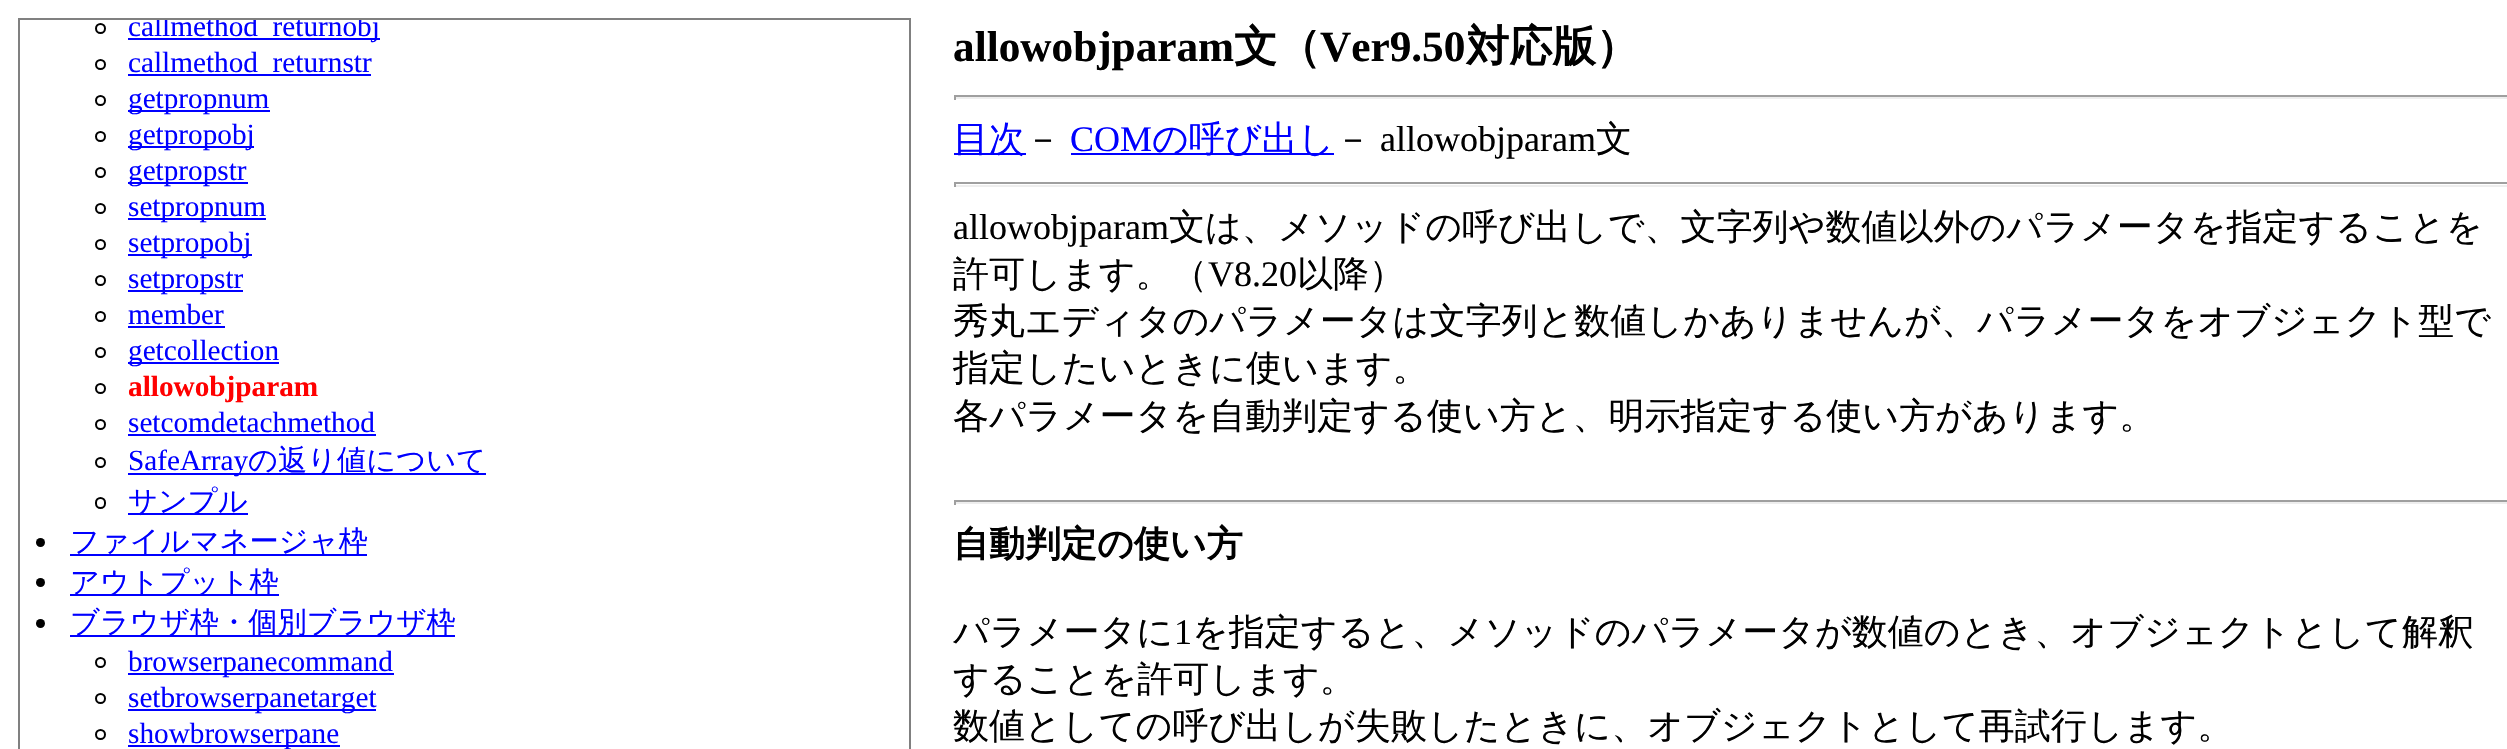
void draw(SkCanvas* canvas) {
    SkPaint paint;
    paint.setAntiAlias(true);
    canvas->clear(0xFFFFFFFF);
    paint.setStyle(SkPaint::kStroke_Style);
    paint.setStrokeWidth(2);
    paint.setColor(0xFF808080);
    canvas->drawRect(SkRect::MakeXYWH(19, 19, 891, 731), paint);
    paint.setColor(0xFF000000);
    canvas->drawCircle(100.5f, 28.5f, 4.5f, paint);
    paint.setStyle(SkPaint::kFill_Style);
    paint.setColor(0xFF0000FF);
    canvas->drawRect(SkRect::MakeXYWH(128, 38, 252, 2), paint);
    canvas->save();
    canvas->clipRect(SkRect::MakeXYWH(20, 20, 889, 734));
    SkFont font1(fontMgr->matchFamilyStyle("Liberation Serif", SkFontStyle::Normal()), 29.25f);
    font1.setSubpixel(true);
    canvas->drawString("callmethod_returnobj", 128, 36, font1, paint);
    canvas->restore();
    paint.setStyle(SkPaint::kStroke_Style);
    paint.setColor(0xFF000000);
    canvas->drawCircle(100.5f, 64.5f, 4.5f, paint);
    paint.setStyle(SkPaint::kFill_Style);
    paint.setColor(0xFF0000FF);
    canvas->drawRect(SkRect::MakeXYWH(128, 74, 243, 2), paint);
    canvas->drawString("callmethod_returnstr", 128, 72, font1, paint);
    paint.setStyle(SkPaint::kStroke_Style);
    paint.setColor(0xFF000000);
    canvas->drawCircle(100.5f, 100.5f, 4.5f, paint);
    paint.setStyle(SkPaint::kFill_Style);
    paint.setColor(0xFF0000FF);
    canvas->drawRect(SkRect::MakeXYWH(128, 110, 142, 2), paint);
    canvas->drawString("getpropnum", 128, 108, font1, paint);
    paint.setStyle(SkPaint::kStroke_Style);
    paint.setColor(0xFF000000);
    canvas->drawCircle(100.5f, 136.5f, 4.5f, paint);
    paint.setStyle(SkPaint::kFill_Style);
    paint.setColor(0xFF0000FF);
    canvas->drawRect(SkRect::MakeXYWH(128, 146, 126, 2), paint);
    canvas->drawString("getpropobj", 128, 144, font1, paint);
    paint.setStyle(SkPaint::kStroke_Style);
    paint.setColor(0xFF000000);
    canvas->drawCircle(100.5f, 172.5f, 4.5f, paint);
    paint.setStyle(SkPaint::kFill_Style);
    paint.setColor(0xFF0000FF);
    canvas->drawRect(SkRect::MakeXYWH(128, 182, 120, 2), paint);
    canvas->drawString("getpropstr", 128, 180, font1, paint);
    paint.setStyle(SkPaint::kStroke_Style);
    paint.setColor(0xFF000000);
    canvas->drawCircle(100.5f, 208.5f, 4.5f, paint);
    paint.setStyle(SkPaint::kFill_Style);
    paint.setColor(0xFF0000FF);
    canvas->drawRect(SkRect::MakeXYWH(128, 218, 138, 2), paint);
    canvas->drawString("setpropnum", 128, 216, font1, paint);
    paint.setStyle(SkPaint::kStroke_Style);
    paint.setColor(0xFF000000);
    canvas->drawCircle(100.5f, 244.5f, 4.5f, paint);
    paint.setStyle(SkPaint::kFill_Style);
    paint.setColor(0xFF0000FF);
    canvas->drawRect(SkRect::MakeXYWH(128, 254, 124, 2), paint);
    canvas->drawString("setpropobj", 128, 252, font1, paint);
    paint.setStyle(SkPaint::kStroke_Style);
    paint.setColor(0xFF000000);
    canvas->drawCircle(100.5f, 280.5f, 4.5f, paint);
    paint.setStyle(SkPaint::kFill_Style);
    paint.setColor(0xFF0000FF);
    canvas->drawRect(SkRect::MakeXYWH(128, 290, 115, 2), paint);
    canvas->drawString("setpropstr", 128, 288, font1, paint);
    paint.setStyle(SkPaint::kStroke_Style);
    paint.setColor(0xFF000000);
    canvas->drawCircle(100.5f, 316.5f, 4.5f, paint);
    paint.setStyle(SkPaint::kFill_Style);
    paint.setColor(0xFF0000FF);
    canvas->drawString("member", 128, 324, font1, paint);
    canvas->drawRect(SkRect::MakeXYWH(128, 326, 97, 2), paint);
    paint.setStyle(SkPaint::kStroke_Style);
    paint.setColor(0xFF000000);
    canvas->drawCircle(100.5f, 352.5f, 4.5f, paint);
    paint.setStyle(SkPaint::kFill_Style);
    paint.setColor(0xFF0000FF);
    canvas->drawRect(SkRect::MakeXYWH(128, 362, 151, 2), paint);
    canvas->drawString("getcollection", 128, 360, font1, paint);
    paint.setStyle(SkPaint::kStroke_Style);
    paint.setColor(0xFF000000);
    canvas->drawCircle(100.5f, 388.5f, 4.5f, paint);
    SkFont font2(fontMgr->matchFamilyStyle("Liberation Serif", SkFontStyle::Bold()), 29.25f);
    font2.setSubpixel(true);
    paint.setStyle(SkPaint::kFill_Style);
    paint.setColor(0xFFFF0000);
    canvas->drawString("allowobjparam", 128, 396, font2, paint);
    paint.setStyle(SkPaint::kStroke_Style);
    paint.setColor(0xFF000000);
    canvas->drawCircle(100.5f, 424.5f, 4.5f, paint);
    paint.setStyle(SkPaint::kFill_Style);
    paint.setColor(0xFF0000FF);
    canvas->drawString("setcomdetachmethod", 128, 432, font1, paint);
    canvas->drawRect(SkRect::MakeXYWH(128, 434, 248, 2), paint);
    paint.setStyle(SkPaint::kStroke_Style);
    paint.setColor(0xFF000000);
    canvas->drawCircle(100.5f, 462.5f, 4.5f, paint);
    paint.setStyle(SkPaint::kFill_Style);
    paint.setColor(0xFF0000FF);
    canvas->drawRect(SkRect::MakeXYWH(128, 473, 358, 2), paint);
    canvas->drawString("SafeArray", 128, 470, font1, paint);
    SkFont font3(fontMgr->matchFamilyStyle("WenQuanYi Zen Hei", SkFontStyle(500, SkFontStyle::kNormal_Width, SkFontStyle::kUpright_Slant)), 29.25f);
    font3.setSubpixel(true);
    canvas->drawString("の返り値について", 248, 470, font3, paint);
    paint.setStyle(SkPaint::kStroke_Style);
    paint.setColor(0xFF000000);
    canvas->drawRoundRect(SkRect::MakeXYWH(96, 498, 9, 10), 4.5f, 4.5f, paint);
    paint.setStyle(SkPaint::kFill_Style);
    paint.setColor(0xFF0000FF);
    canvas->drawRect(SkRect::MakeXYWH(128, 513, 120, 2), paint);
    canvas->drawString("サンプル", 128, 511, font3, paint);
    paint.setColor(0xFF000000);
    canvas->drawCircle(40.5f, 542.5f, 4.5f, paint);
    paint.setColor(0xFF0000FF);
    canvas->drawRect(SkRect::MakeXYWH(70, 554, 297, 2), paint);
    canvas->drawString("ファイルマネージャ枠", 70, 551, font3, paint);
    paint.setColor(0xFF000000);
    canvas->drawCircle(40.5f, 582.5f, 4.5f, paint);
    paint.setColor(0xFF0000FF);
    canvas->drawRect(SkRect::MakeXYWH(70, 594, 209, 2), paint);
    canvas->drawString("アウトプット枠", 70, 592, font3, paint);
    paint.setColor(0xFF000000);
    canvas->drawCircle(40.5f, 623.5f, 4.5f, paint);
    paint.setColor(0xFF0000FF);
    canvas->drawRect(SkRect::MakeXYWH(70, 635, 385, 2), paint);
    canvas->drawString("ブラウザ枠・個別ブラウザ枠", 70, 632, font3, paint);
    paint.setStyle(SkPaint::kStroke_Style);
    paint.setColor(0xFF000000);
    canvas->drawCircle(100.5f, 662.5f, 4.5f, paint);
    paint.setStyle(SkPaint::kFill_Style);
    paint.setColor(0xFF0000FF);
    canvas->drawRect(SkRect::MakeXYWH(128, 673, 266, 2), paint);
    canvas->drawString("browserpanecommand", 128, 671, font1, paint);
    paint.setStyle(SkPaint::kStroke_Style);
    paint.setColor(0xFF000000);
    canvas->drawCircle(100.5f, 698.5f, 4.5f, paint);
    paint.setStyle(SkPaint::kFill_Style);
    paint.setColor(0xFF0000FF);
    canvas->drawRect(SkRect::MakeXYWH(128, 709, 248, 2), paint);
    canvas->drawString("setbrowserpanetarget", 128, 707, font1, paint);
    paint.setStyle(SkPaint::kStroke_Style);
    paint.setColor(0xFF000000);
    canvas->drawCircle(100.5f, 734.5f, 4.5f, paint);
    paint.setStyle(SkPaint::kFill_Style);
    paint.setColor(0xFF0000FF);
    canvas->drawRect(SkRect::MakeXYWH(128, 745, 212, 2), paint);
    canvas->drawString("showbrowserpane", 128, 743, font1, paint);
    SkFont font4(fontMgr->matchFamilyStyle("Liberation Serif", SkFontStyle::Bold()), 43.25f);
    font4.setSubpixel(true);
    paint.setColor(0xFF000000);
    canvas->drawString("allowobjparam", 953, 61, font4, paint);
    SkFont font5(fontMgr->matchFamilyStyle("WenQuanYi Zen Hei", SkFontStyle::Bold()), 43.25f);
    font5.setSubpixel(true);
    canvas->drawString("文（", 1234, 61, font5, paint);
    canvas->drawString("Ver9.50", 1320, 61, font4, paint);
    canvas->drawString("対応版）", 1466, 61, font5, paint);
    paint.setColor(0xFF9F9F9F);
    canvas->drawRect(SkRect::MakeXYWH(954, 95, 1553, 2), paint);
    paint.setColor(0xFFEEEEEE);
    canvas->drawRect(SkRect::MakeXYWH(954, 97, 1553, 2), paint);
    paint.setColor(0xFF9F9F9F);
    canvas->drawRect(SkRect::MakeXYWH(954, 95, 2, 5), paint);
    paint.setColor(0xFF0000FF);
    canvas->drawRect(SkRect::MakeXYWH(954, 153, 72, 2), paint);
    SkFont font6(fontMgr->matchFamilyStyle("WenQuanYi Zen Hei", SkFontStyle(500, SkFontStyle::kNormal_Width, SkFontStyle::kUpright_Slant)), 36);
    font6.setSubpixel(true);
    canvas->drawString("目次", 953, 151, font6, paint);
    paint.setColor(0xFF000000);
    canvas->drawString("－", 1025, 151, font6, paint);
    SkFont font7(fontMgr->matchFamilyStyle("Liberation Serif", SkFontStyle::Normal()), 36);
    font7.setSubpixel(true);
    paint.setColor(0xFF0000FF);
    canvas->drawString("COM", 1070, 151, font7, paint);
    canvas->drawRect(SkRect::MakeXYWH(1071, 153, 263, 2), paint);
    canvas->drawString("の呼び出し", 1152, 151, font6, paint);
    paint.setColor(0xFF000000);
    canvas->drawString("－", 1335, 151, font6, paint);
    canvas->drawString("allowobjparam", 1380, 151, font7, paint);
    canvas->drawString("文", 1596, 151, font6, paint);
    paint.setColor(0xFF9F9F9F);
    canvas->drawRect(SkRect::MakeXYWH(954, 182, 1553, 2), paint);
    paint.setColor(0xFFEEEEEE);
    canvas->drawRect(SkRect::MakeXYWH(954, 185, 1553, 2), paint);
    paint.setColor(0xFF9F9F9F);
    canvas->drawRect(SkRect::MakeXYWH(954, 182, 2, 5), paint);
    paint.setColor(0xFF000000);
    canvas->drawString("allowobjparam", 953, 239, font7, paint);
    canvas->drawString("文は、メソッドの呼び出しで、文字列や数値以外のパラメータを指定することを", 1169, 239, font6, paint);
    canvas->drawString("許可します。（", 953, 286, font6, paint);
    canvas->drawString("V8.20", 1208, 286, font7, paint);
    canvas->drawString("以降）", 1297, 286, font6, paint);
    canvas->drawString("秀丸エディタのパラメータは文字列と数値しかありませんが、パラメータをオブジェクト型で", 953, 333, font6, paint);
    canvas->drawString("指定したいときに使います。", 953, 380, font6, paint);
    canvas->drawString("各パラメータを自動判定する使い方と、明示指定する使い方があります。", 953, 428, font6, paint);
    paint.setColor(0xFF9F9F9F);
    canvas->drawRect(SkRect::MakeXYWH(954, 500, 1553, 2), paint);
    paint.setColor(0xFFEEEEEE);
    canvas->drawRect(SkRect::MakeXYWH(954, 502, 1553, 2), paint);
    paint.setColor(0xFF9F9F9F);
    canvas->drawRect(SkRect::MakeXYWH(954, 500, 2, 5), paint);
    SkFont font8(fontMgr->matchFamilyStyle("WenQuanYi Zen Hei", SkFontStyle::Bold()), 36);
    font8.setSubpixel(true);
    paint.setColor(0xFF000000);
    canvas->drawString("自動判定の使い方", 953, 556, font8, paint);
    canvas->drawString("パラメータに", 953, 644, font6, paint);
    canvas->drawString("1", 1174, 644, font7, paint);
    canvas->drawString("を指定すると、メソッドのパラメータが数値のとき、オブジェクトとして解釈", 1192, 644, font6, paint);
    canvas->drawString("することを許可します。", 953, 691, font6, paint);
    canvas->drawString("数値としての呼び出しが失敗したときに、オブジェクトとして再試行します。", 953, 738, font6, paint);
}
